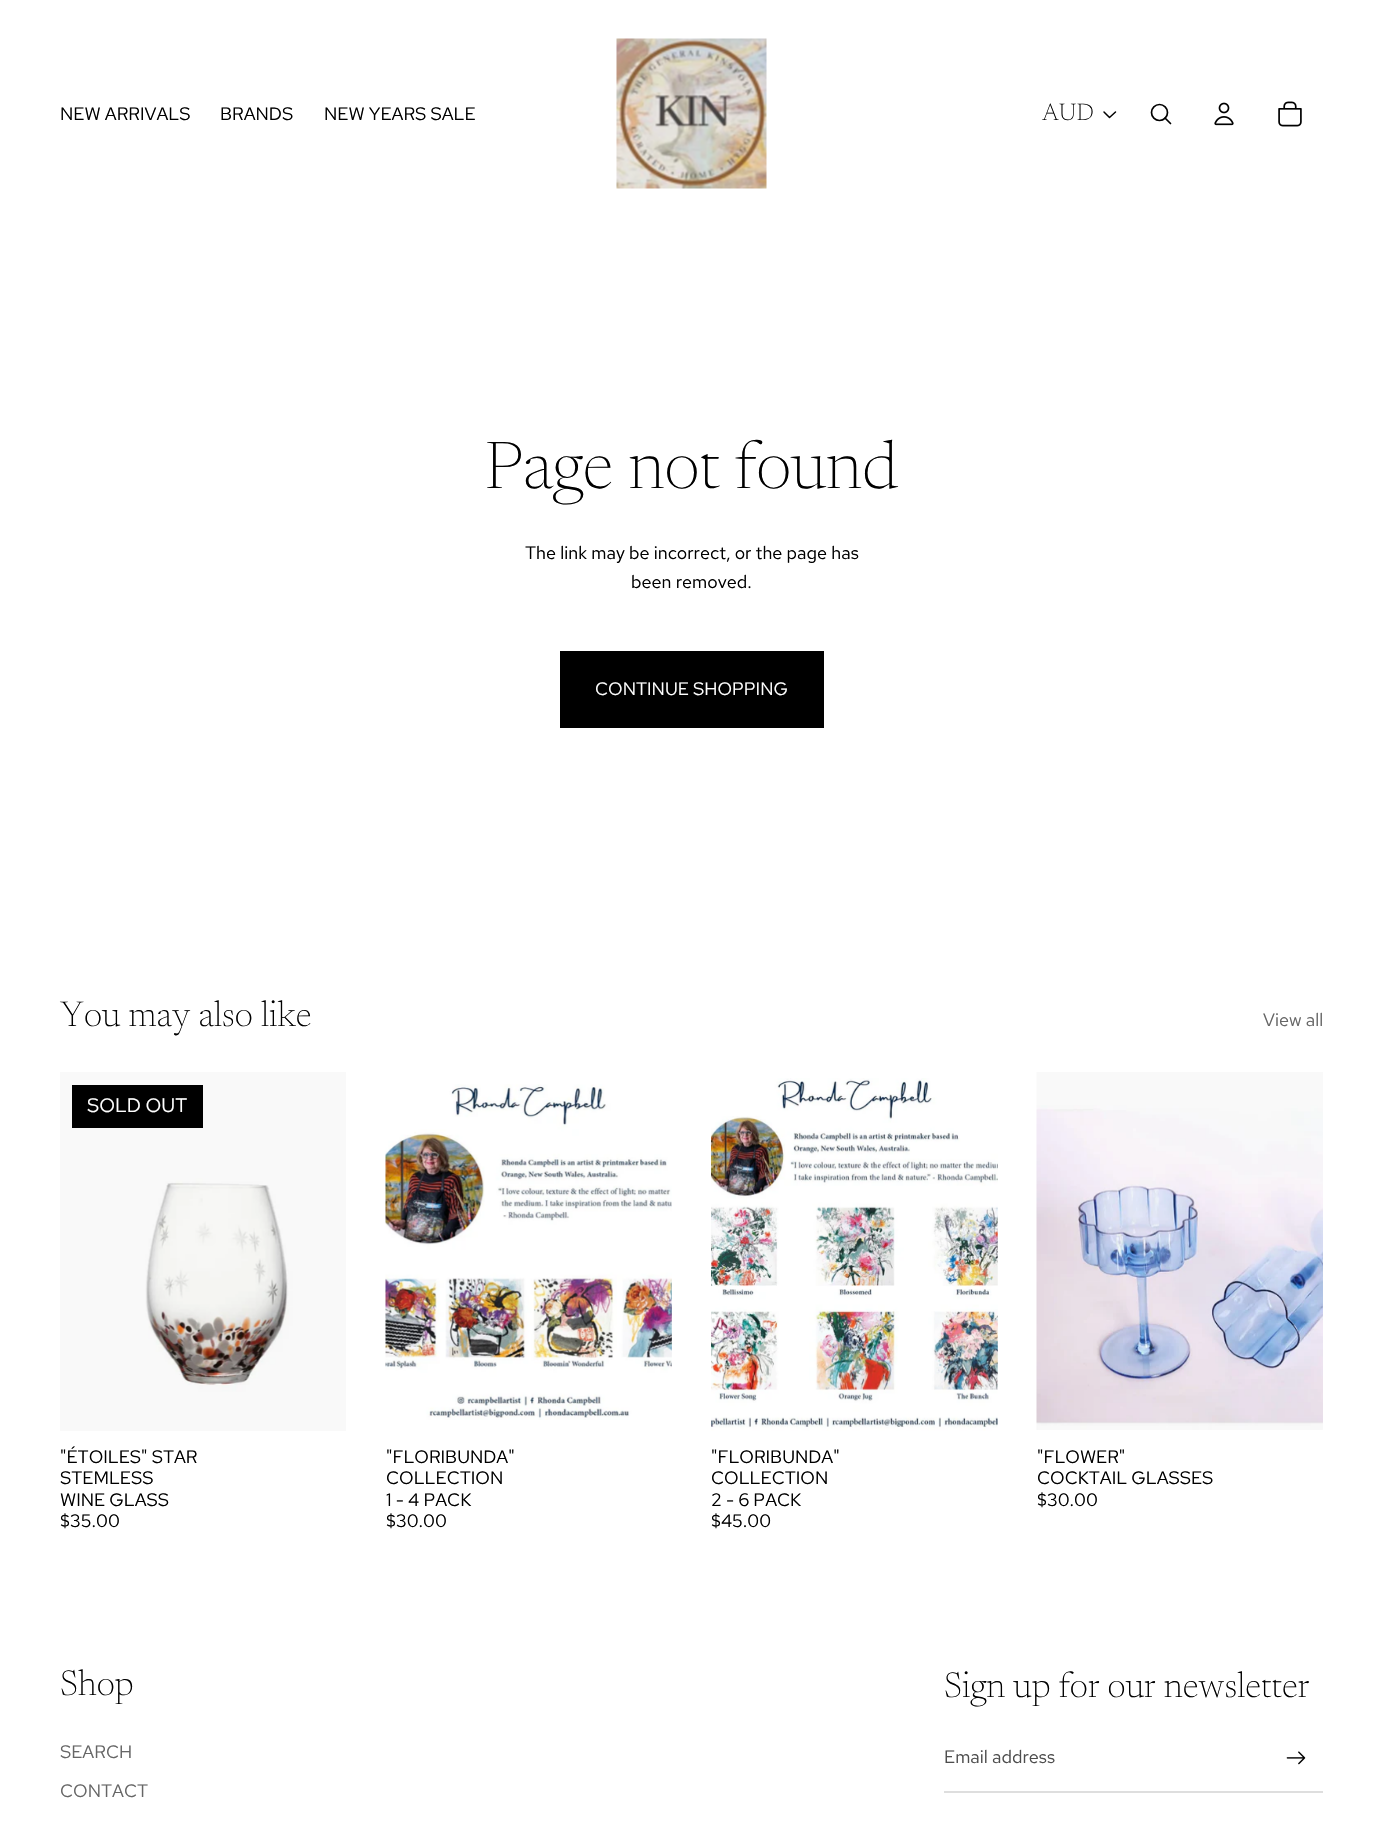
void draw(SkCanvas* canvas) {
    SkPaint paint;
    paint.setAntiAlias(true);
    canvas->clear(0xFFFFFFFF);
    SkFont font1(fontMgr->matchFamilyStyle("Red Hat Text", SkFontStyle::Normal()), 18);
    font1.setSubpixel(true);
    paint.setColor(0xFF000000);
    canvas->drawString("NEW ARRIVALS", 60, 120, font1, paint);
    canvas->drawString("BRANDS", 220, 120, font1, paint);
    canvas->drawString("NEW YEARS SALE", 324, 120, font1, paint);
    canvas->drawImageRect(SkImages::DeferredFromEncodedData(SkData::MakeFromFileName("img1.png")), SkRect::MakeXYWH(616, 38, 151, 151), SkSamplingOptions());
    SkFont font2(fontMgr->matchFamilyStyle("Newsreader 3", SkFontStyle(200, SkFontStyle::kNormal_Width, SkFontStyle::kUpright_Slant)), 24);
    font2.setSubpixel(true);
    canvas->drawString("AUD", 1042, 120, font2, paint);
    paint.setStyle(SkPaint::kStroke_Style);
    paint.setStrokeWidth(1.5f);
    paint.setStrokeCap(SkPaint::kRound_Cap);
    paint.setStrokeJoin(SkPaint::kRound_Join);
    canvas->drawPath(SkPathBuilder().moveTo(1115.5f, 112).lineTo(1109.5f, 117.5f).lineTo(1104, 112).detach(), paint);
    paint.setStrokeWidth(1.7f);
    paint.setStrokeCap(SkPaint::kButt_Cap);
    paint.setStrokeJoin(SkPaint::kMiter_Join);
    canvas->drawCircle(1159.5f, 112.5f, 8, paint);
    paint.setStrokeCap(SkPaint::kRound_Cap);
    paint.setStrokeJoin(SkPaint::kRound_Join);
    canvas->drawPath(SkPathBuilder().moveTo(1165, 118).lineTo(1170.5f, 123.5f).detach(), paint);
    canvas->drawImageRect(SkImages::DeferredFromEncodedData(SkData::MakeFromFileName("img2.png")), SkRect::MakeXYWH(1214, 102, 20, 24), SkSamplingOptions());
    canvas->drawImageRect(SkImages::DeferredFromEncodedData(SkData::MakeFromFileName("img3.png")), SkRect::MakeXYWH(1278, 101, 24, 26), SkSamplingOptions());
    SkFont font3(fontMgr->matchFamilyStyle("Newsreader", SkFontStyle(200, SkFontStyle::kNormal_Width, SkFontStyle::kUpright_Slant)), 66.5f);
    font3.setSubpixel(true);
    paint.setStyle(SkPaint::kFill_Style);
    canvas->drawString("Page not found", 485, 488, font3, paint);
    canvas->drawString("The link may be incorrect, or the page has", 525, 559, font1, paint);
    canvas->drawString("been removed.", 631, 588, font1, paint);
    canvas->drawRect(SkRect::MakeXYWH(560, 651, 264, 77), paint);
    paint.setColor(0xFFFFFFFF);
    canvas->drawString("CONTINUE SHOPPING", 595, 695, font1, paint);
    SkFont font4(fontMgr->matchFamilyStyle("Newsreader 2", SkFontStyle(200, SkFontStyle::kNormal_Width, SkFontStyle::kUpright_Slant)), 36);
    font4.setSubpixel(true);
    paint.setColor(0xFF000000);
    canvas->drawString("You may also like", 60, 1026, font4, paint);
    paint.setColor(0xFF666666);
    canvas->drawString("View all", 1263, 1026, font1, paint);
    canvas->drawImageRect(SkImages::DeferredFromEncodedData(SkData::MakeFromFileName("img4.png")), SkRect::MakeXYWH(60, 1072, 286, 359), SkSamplingOptions());
    paint.setColor(0xFF000000);
    canvas->drawRect(SkRect::MakeXYWH(72, 1085, 131, 43), paint);
    SkFont font5(fontMgr->matchFamilyStyle("Red Hat Text", SkFontStyle::Normal()), 19.5f);
    font5.setSubpixel(true);
    paint.setColor(0xFFFFFFFF);
    canvas->drawString("SOLD OUT", 87, 1112, font5, paint);
    paint.setColor(0xFF000000);
    canvas->drawString("\"ÉTOILES\" STAR", 60, 1463, font1, paint);
    canvas->drawString("STEMLESS", 60, 1484, font1, paint);
    canvas->drawString("WINE GLASS", 60, 1506, font1, paint);
    canvas->drawString("$35.00", 60, 1527, font1, paint);
    canvas->drawImageRect(SkImages::DeferredFromEncodedData(SkData::MakeFromFileName("img5.png")), SkRect::MakeXYWH(385, 1084, 287, 336), SkSamplingOptions());
    canvas->drawString("\"FLORIBUNDA\"", 386, 1463, font1, paint);
    canvas->drawString("COLLECTION", 386, 1484, font1, paint);
    canvas->drawString("1 - 4 PACK", 386, 1506, font1, paint);
    canvas->drawString("$30.00", 386, 1527, font1, paint);
    canvas->drawImageRect(SkImages::DeferredFromEncodedData(SkData::MakeFromFileName("img6.png")), SkRect::MakeXYWH(711, 1078, 287, 353), SkSamplingOptions());
    canvas->drawString("\"FLORIBUNDA\"", 711, 1463, font1, paint);
    canvas->drawString("COLLECTION", 711, 1484, font1, paint);
    canvas->drawString("2 - 6 PACK", 711, 1506, font1, paint);
    canvas->drawString("$45.00", 711, 1527, font1, paint);
    canvas->drawImageRect(SkImages::DeferredFromEncodedData(SkData::MakeFromFileName("img7.png")), SkRect::MakeXYWH(1036, 1072, 287, 358), SkSamplingOptions());
    canvas->drawString("\"FLOWER\"", 1037, 1463, font1, paint);
    canvas->drawString("COCKTAIL GLASSES", 1037, 1484, font1, paint);
    canvas->drawString("$30.00", 1037, 1506, font1, paint);
    canvas->drawString("Shop", 60, 1695, font4, paint);
    paint.setColor(0xFF666666);
    canvas->drawString("SEARCH", 60, 1758, font1, paint);
    canvas->drawString("CONTACT", 60, 1797, font1, paint);
    paint.setColor(0xFF000000);
    canvas->drawString("Sign up for our newsletter", 944, 1697, font4, paint);
    paint.setColor(0xFFDEDEDE);
    canvas->drawRect(SkRect::MakeXYWH(944, 1791, 379, 2), paint);
    paint.setColor(0xFF4D4D4D);
    canvas->drawString("Email address", 944, 1763, font1, paint);
    canvas->drawImageRect(SkImages::DeferredFromEncodedData(SkData::MakeFromFileName("img8.png")), SkRect::MakeXYWH(1286, 1751, 20, 14), SkSamplingOptions());
}
